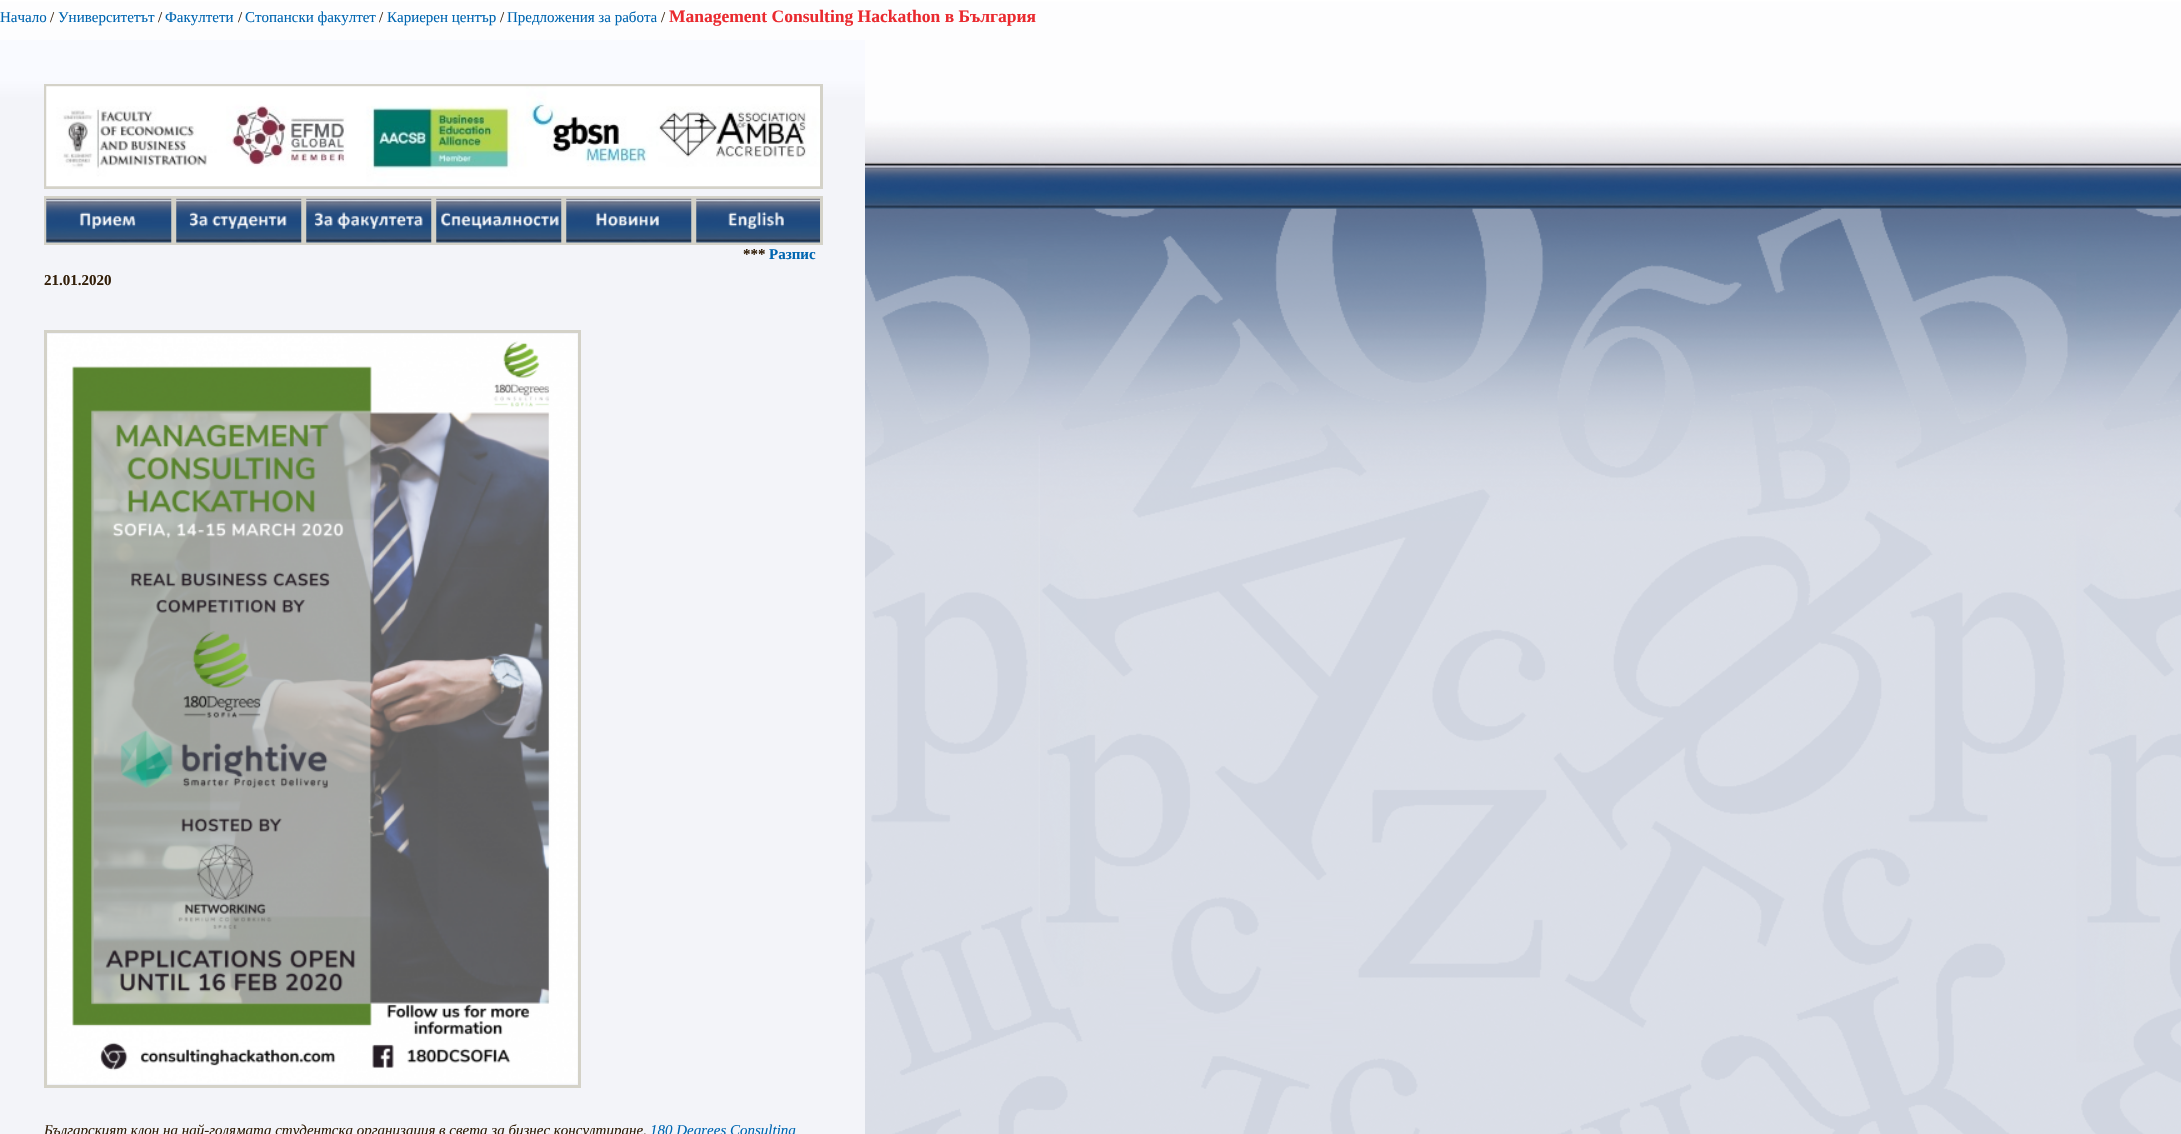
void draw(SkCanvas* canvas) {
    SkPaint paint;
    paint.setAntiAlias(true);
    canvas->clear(0xFFFFFFFF);
    canvas->drawImageRect(SkImages::DeferredFromEncodedData(SkData::MakeFromFileName("img1.png")), SkRect::MakeXYWH(0, 0, 2181, 1134), SkSamplingOptions());
    SkFont font1(fontMgr->matchFamilyStyle("Liberation Serif", SkFontStyle::Normal()), 15);
    font1.setSubpixel(true);
    paint.setColor(0xFF0066B1);
    canvas->drawString("Начало", 0, 22, font1, paint);
    paint.setColor(0xFF331F09);
    canvas->drawString("/", 50, 22, font1, paint);
    paint.setColor(0xFF0066B1);
    canvas->drawString("Университетът", 58, 22, font1, paint);
    paint.setColor(0xFF331F09);
    canvas->drawString("/", 158, 22, font1, paint);
    paint.setColor(0xFF0066B1);
    canvas->drawString("Факултети", 165, 22, font1, paint);
    paint.setColor(0xFF331F09);
    canvas->drawString("/", 238, 22, font1, paint);
    paint.setColor(0xFF0066B1);
    canvas->drawString("Стопански факултет", 245, 22, font1, paint);
    paint.setColor(0xFF331F09);
    canvas->drawString("/", 379, 22, font1, paint);
    paint.setColor(0xFF0066B1);
    canvas->drawString("Кариерен център", 387, 22, font1, paint);
    paint.setColor(0xFF331F09);
    canvas->drawString("/", 500, 22, font1, paint);
    paint.setColor(0xFF0066B1);
    canvas->drawString("Предложения за работа", 507, 22, font1, paint);
    paint.setColor(0xFF331F09);
    canvas->drawString("/", 661, 22, font1, paint);
    SkFont font2(fontMgr->matchFamilyStyle("Liberation Serif", SkFontStyle::Bold()), 17.5f);
    font2.setSubpixel(true);
    paint.setColor(0xFFEA2A2F);
    canvas->drawString("Management Consulting Hackathon в България", 669, 22, font2, paint);
    {
        const SkColor colors[] = {0xFFF9FAFF, 0xFFF3F4F9};
        const float stops[] = {0.02f, 0.03f};
        const SkPoint ends[] = {{432, 40}, {433, 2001}};
        paint.setShader(SkGradientShader::MakeLinear(ends, colors, stops, 2, SkTileMode::kClamp));
        paint.setAlpha(255);
    }
    canvas->drawRect(SkRect::MakeXYWH(0, 40, 865, 1094), paint);
    paint.setStyle(SkPaint::kStroke_Style);
    paint.setStrokeWidth(3);
    paint.setShader(nullptr);
    paint.setColor(0xFFD4D2C8);
    canvas->drawRect(SkRect::MakeXYWH(45.5f, 85.5f, 776, 102), paint);
    canvas->drawImageRect(SkImages::DeferredFromEncodedData(SkData::MakeFromFileName("img2.png")), SkRect::MakeXYWH(46, 86, 774, 101), SkSamplingOptions());
    canvas->drawRect(SkRect::MakeXYWH(45.5f, 197.5f, 127, 46), paint);
    canvas->drawImageRect(SkImages::DeferredFromEncodedData(SkData::MakeFromFileName("img3.png")), SkRect::MakeXYWH(46, 198, 126, 45), SkSamplingOptions());
    canvas->drawRect(SkRect::MakeXYWH(175.5f, 197.5f, 127, 46), paint);
    canvas->drawImageRect(SkImages::DeferredFromEncodedData(SkData::MakeFromFileName("img4.png")), SkRect::MakeXYWH(176, 198, 126, 45), SkSamplingOptions());
    canvas->drawRect(SkRect::MakeXYWH(305.5f, 197.5f, 127, 46), paint);
    canvas->drawImageRect(SkImages::DeferredFromEncodedData(SkData::MakeFromFileName("img5.png")), SkRect::MakeXYWH(306, 198, 126, 45), SkSamplingOptions());
    canvas->drawRect(SkRect::MakeXYWH(435.5f, 197.5f, 127, 46), paint);
    canvas->drawImageRect(SkImages::DeferredFromEncodedData(SkData::MakeFromFileName("img6.png")), SkRect::MakeXYWH(436, 198, 126, 45), SkSamplingOptions());
    canvas->drawRect(SkRect::MakeXYWH(565.5f, 197.5f, 127, 46), paint);
    canvas->drawImageRect(SkImages::DeferredFromEncodedData(SkData::MakeFromFileName("img7.png")), SkRect::MakeXYWH(566, 198, 126, 45), SkSamplingOptions());
    canvas->drawRect(SkRect::MakeXYWH(695.5f, 197.5f, 126, 46), paint);
    canvas->drawImageRect(SkImages::DeferredFromEncodedData(SkData::MakeFromFileName("img8.png")), SkRect::MakeXYWH(696, 198, 124, 45), SkSamplingOptions());
    SkFont font3(fontMgr->matchFamilyStyle("Liberation Serif", SkFontStyle::Bold()), 15);
    font3.setSubpixel(true);
    paint.setStyle(SkPaint::kFill_Style);
    paint.setColor(0xFF331F09);
    canvas->drawString("***", 743, 259, font3, paint);
    paint.setColor(0xFF0066B1);
    canvas->drawString("Разпис", 769, 259, font3, paint);
    paint.setColor(0xFF331F09);
    canvas->drawString("21.01.2020", 44, 285, font3, paint);
    paint.setStyle(SkPaint::kStroke_Style);
    paint.setColor(0xFFD4D2C8);
    canvas->drawRect(SkRect::MakeXYWH(45.5f, 331.5f, 534, 755), paint);
    canvas->drawImageRect(SkImages::DeferredFromEncodedData(SkData::MakeFromFileName("img9.png")), SkRect::MakeXYWH(47, 334, 531, 750), SkSamplingOptions());
    SkFont font4(fontMgr->matchFamilyStyle("Liberation Serif", SkFontStyle::Italic()), 15);
    font4.setSubpixel(true);
    paint.setStyle(SkPaint::kFill_Style);
    paint.setColor(0xFF331F09);
    canvas->drawString("Българският клон на най-голямата студентска организация в света за бизнес консултиране,", 44, 1135, font4, paint);
    paint.setColor(0xFF0066B1);
    canvas->drawString("180 Degrees Consulting", 650, 1135, font4, paint);
}
